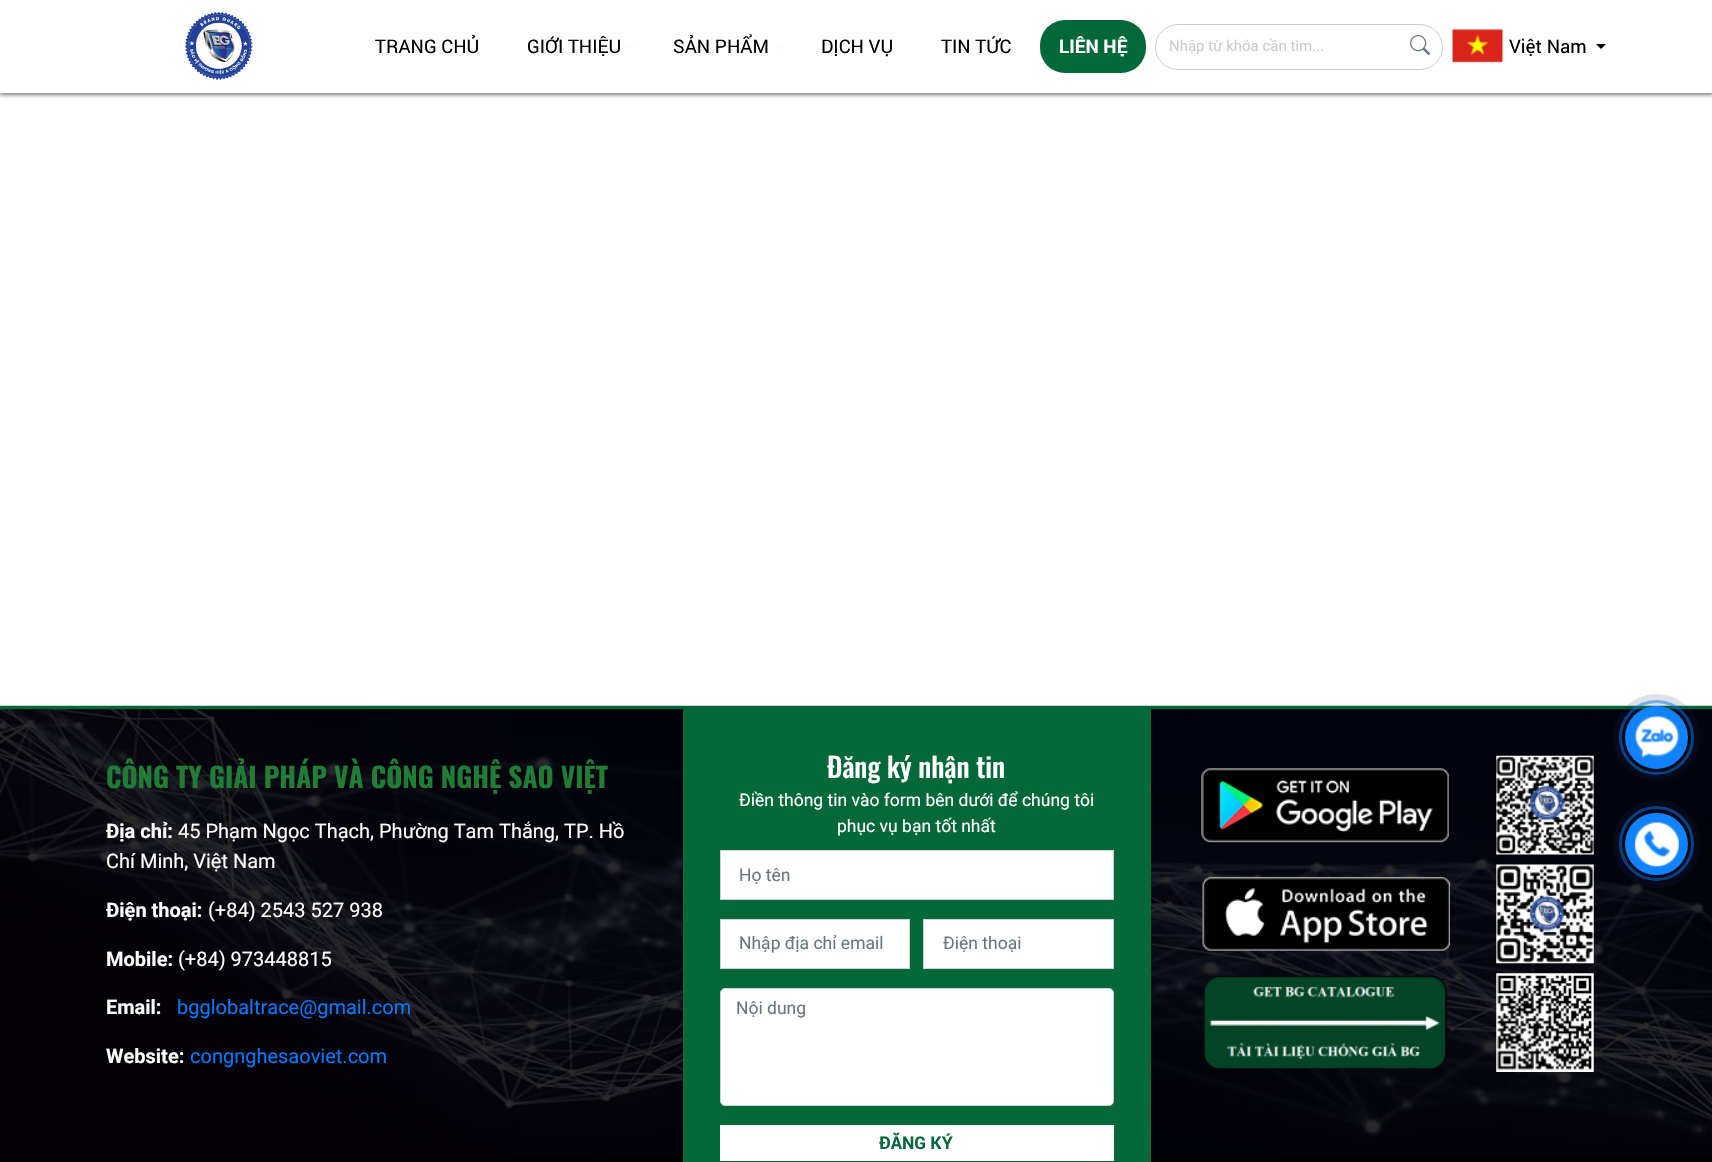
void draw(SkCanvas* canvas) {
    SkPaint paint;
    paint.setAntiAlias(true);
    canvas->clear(0xFFFFFFFF);
    paint.setColor(0x80000000);
    paint.setMaskFilter(SkMaskFilter::MakeBlur(kNormal_SkBlurStyle, 2));
    canvas->drawRect(SkRect::MakeXYWH(0, 3, 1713, 92), paint);
    paint.setMaskFilter(nullptr);
    paint.setColor(0xFFFFFFFF);
    canvas->drawRect(SkRect::MakeXYWH(0, 0, 1712, 93), paint);
    canvas->drawImageRect(SkImages::DeferredFromEncodedData(SkData::MakeFromFileName("img1.png")), SkRect::MakeXYWH(185, 12, 68, 68), SkSamplingOptions());
    SkFont font1(fontMgr->matchFamilyStyle("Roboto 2", SkFontStyle::Normal()), 18.75f);
    font1.setSubpixel(true);
    paint.setColor(0xFF000000);
    canvas->drawString("TRANG CHỦ", 375, 53, font1, paint);
    canvas->drawString("GIỚI THIỆU", 527, 53, font1, paint);
    paint.setColor(0xFFFAFAFA);
    canvas->drawPath(SkPathBuilder().moveTo(635, 44.5f).lineTo(636, 45.5f).lineTo(631.5f, 50).lineTo(630.5f, 49).close().detach(), paint);
    canvas->drawPath(SkPathBuilder().moveTo(628, 44.5f).lineTo(632.5f, 49).lineTo(631.5f, 50).lineTo(627, 45.5f).close().detach(), paint);
    paint.setColor(0xFF000000);
    canvas->drawString("SẢN PHẨM", 673, 53, font1, paint);
    paint.setColor(0xFFFAFAFA);
    canvas->drawPath(SkPathBuilder().moveTo(783, 44.5f).lineTo(784, 45.5f).lineTo(779.5f, 50).lineTo(779, 49).close().detach(), paint);
    canvas->drawPath(SkPathBuilder().moveTo(776, 44.5f).lineTo(780.5f, 49).lineTo(779.5f, 50).lineTo(775.5f, 45.5f).close().detach(), paint);
    paint.setColor(0xFF000000);
    canvas->drawString("DỊCH VỤ", 821, 53, font1, paint);
    canvas->drawString("TIN TỨC", 941, 53, font1, paint);
    paint.setColor(0xFF056839);
    canvas->drawRoundRect(SkRect::MakeXYWH(1040, 20, 106, 53), 25, 25, paint);
    SkFont font2(fontMgr->matchFamilyStyle("Roboto 2", SkFontStyle::Bold()), 18.75f);
    font2.setSubpixel(true);
    paint.setColor(0xFFFFFFFF);
    canvas->drawString("LIÊN HỆ", 1059, 53, font2, paint);
    paint.setStyle(SkPaint::kStroke_Style);
    paint.setStrokeWidth(1);
    paint.setColor(0xFFCCCCCC);
    canvas->drawRoundRect(SkRect::MakeXYWH(1155.5f, 24.5f, 287, 45), 22.5f, 22.5f, paint);
    SkFont font3(fontMgr->matchFamilyStyle("Roboto", SkFontStyle::Normal()), 15);
    font3.setSubpixel(true);
    paint.setStyle(SkPaint::kFill_Style);
    canvas->drawString("Nhập từ khóa cần tìm...", 1169, 51, font3, paint);
    canvas->drawImageRect(SkImages::DeferredFromEncodedData(SkData::MakeFromFileName("img2.png")), SkRect::MakeXYWH(1410, 35, 20, 20), SkSamplingOptions());
    canvas->drawImageRect(SkImages::DeferredFromEncodedData(SkData::MakeFromFileName("img3.png")), SkRect::MakeXYWH(1452, 29, 52, 34), SkSamplingOptions());
    paint.setColor(0xFF000000);
    canvas->drawString("Việt Nam", 1509, 53, font1, paint);
    canvas->drawPath(SkPathBuilder().moveTo(1596, 44).lineTo(1606, 44).lineTo(1601, 49).close().detach(), paint);
    canvas->drawImageRect(SkImages::DeferredFromEncodedData(SkData::MakeFromFileName("img5.png")), SkRect::MakeXYWH(0, 705, 1712, 457), SkSamplingOptions());
    paint.setStyle(SkPaint::kStroke_Style);
    paint.setStrokeWidth(3);
    paint.setColor(0x801182FC);
    canvas->drawCircle(1656.5f, 737.5f, 36, paint);
    paint.setStyle(SkPaint::kFill_Style);
    paint.setColor(0x24072967);
    canvas->drawCircle(1656.5f, 737.5f, 43.5f, paint);
    paint.setColor(0xFF1182FC);
    canvas->drawCircle(1656.5f, 737.5f, 31.5f, paint);
    canvas->drawImageRect(SkImages::DeferredFromEncodedData(SkData::MakeFromFileName("img4.png")), SkRect::MakeXYWH(1634, 716, 45, 42), SkSamplingOptions());
    SkFont font4(fontMgr->matchFamilyStyle("Oswald", SkFontStyle::Bold()), 27.5f);
    font4.setSubpixel(true);
    paint.setColor(0xFF207D36);
    canvas->drawString("CÔNG TY GIẢI PHÁP VÀ CÔNG NGHỆ SAO VIỆT", 106, 788, font4, paint);
    SkFont font5(fontMgr->matchFamilyStyle("Roboto", SkFontStyle::Bold()), 20);
    font5.setSubpixel(true);
    paint.setColor(0xFFFFFFFF);
    canvas->drawString("Địa chỉ:", 106, 838, font5, paint);
    SkFont font6(fontMgr->matchFamilyStyle("Roboto", SkFontStyle::Normal()), 20);
    font6.setSubpixel(true);
    canvas->drawString("45 Phạm Ngọc Thạch, Phường Tam Thắng, TP. Hồ", 178, 838, font6, paint);
    canvas->drawString("Chí Minh, Việt Nam", 106, 868, font6, paint);
    canvas->drawString("Điện thoại:", 106, 917, font5, paint);
    canvas->drawString("(+84) 2543 527 938", 208, 917, font6, paint);
    canvas->drawString("Mobile:", 106, 966, font5, paint);
    canvas->drawString("(+84) 973448815", 178, 966, font6, paint);
    canvas->drawString("Email:", 106, 1014, font5, paint);
    paint.setColor(0xFF007BFF);
    canvas->drawString("bgglobaltrace@gmail.com", 177, 1014, font6, paint);
    paint.setColor(0xFFFFFFFF);
    canvas->drawString("Website:", 106, 1063, font5, paint);
    paint.setColor(0xFF007BFF);
    canvas->drawString("congnghesaoviet.com", 190, 1063, font6, paint);
    paint.setColor(0xFF056839);
    canvas->drawRect(SkRect::MakeXYWH(683, 709, 468, 453), paint);
    SkFont font7(fontMgr->matchFamilyStyle("Oswald", SkFontStyle(500, SkFontStyle::kNormal_Width, SkFontStyle::kUpright_Slant)), 27.5f);
    font7.setSubpixel(true);
    paint.setColor(0xFFFFFFFF);
    canvas->drawString("Đăng ký nhận tin", 827, 778, font7, paint);
    SkFont font8(fontMgr->matchFamilyStyle("Roboto", SkFontStyle::Normal()), 17.5f);
    font8.setSubpixel(true);
    canvas->drawString("Điền thông tin vào form bên dưới để chúng tôi", 739, 806, font8, paint);
    canvas->drawString("phục vụ bạn tốt nhất", 837, 832, font8, paint);
    canvas->drawRect(SkRect::MakeXYWH(720.5f, 850.5f, 393, 49), paint);
    paint.setStyle(SkPaint::kStroke_Style);
    paint.setStrokeWidth(1);
    paint.setColor(0xFFCED4DA);
    canvas->drawRect(SkRect::MakeXYWH(720.5f, 850.5f, 393, 49), paint);
    paint.setStyle(SkPaint::kFill_Style);
    paint.setColor(0xFF6C757D);
    canvas->drawString("Họ tên", 739, 881, font8, paint);
    paint.setColor(0xFFFFFFFF);
    canvas->drawRect(SkRect::MakeXYWH(720.5f, 919.5f, 189, 49), paint);
    paint.setStyle(SkPaint::kStroke_Style);
    paint.setColor(0xFFCED4DA);
    canvas->drawRect(SkRect::MakeXYWH(720.5f, 919.5f, 189, 49), paint);
    paint.setStyle(SkPaint::kFill_Style);
    paint.setColor(0xFF6C757D);
    canvas->drawString("Nhập địa chỉ email", 739, 949, font8, paint);
    paint.setColor(0xFFFFFFFF);
    canvas->drawRect(SkRect::MakeXYWH(923.5f, 919.5f, 190, 49), paint);
    paint.setStyle(SkPaint::kStroke_Style);
    paint.setColor(0xFFCED4DA);
    canvas->drawRect(SkRect::MakeXYWH(923.5f, 919.5f, 190, 49), paint);
    paint.setStyle(SkPaint::kFill_Style);
    paint.setColor(0xFF6C757D);
    canvas->drawString("Điện thoại", 943, 949, font8, paint);
    paint.setColor(0xFFFFFFFF);
    canvas->drawRoundRect(SkRect::MakeXYWH(720.5f, 988.5f, 393, 117), 4.5f, 4.5f, paint);
    paint.setStyle(SkPaint::kStroke_Style);
    paint.setColor(0xFFCED4DA);
    canvas->drawRoundRect(SkRect::MakeXYWH(720.5f, 988.5f, 393, 117), 4.5f, 4.5f, paint);
    paint.setStyle(SkPaint::kFill_Style);
    paint.setColor(0xFF6C757D);
    canvas->drawString("Nội dung", 736, 1014, font8, paint);
    paint.setColor(0xFFFFFFFF);
    canvas->drawRect(SkRect::MakeXYWH(720, 1125, 394, 36), paint);
    SkFont font9(fontMgr->matchFamilyStyle("Roboto 2", SkFontStyle::Bold()), 17.5f);
    font9.setSubpixel(true);
    paint.setColor(0xFF056839);
    canvas->drawString("ĐĂNG KÝ", 879, 1149, font9, paint);
    canvas->drawImageRect(SkImages::DeferredFromEncodedData(SkData::MakeFromFileName("img6.png")), SkRect::MakeXYWH(1201, 768, 248, 75), SkSamplingOptions());
    canvas->drawImageRect(SkImages::DeferredFromEncodedData(SkData::MakeFromFileName("img7.png")), SkRect::MakeXYWH(1202, 876, 248, 75), SkSamplingOptions());
    canvas->drawImageRect(SkImages::DeferredFromEncodedData(SkData::MakeFromFileName("img8.png")), SkRect::MakeXYWH(1203, 975, 245, 95), SkSamplingOptions());
    canvas->drawImageRect(SkImages::DeferredFromEncodedData(SkData::MakeFromFileName("img9.png")), SkRect::MakeXYWH(1496, 755, 98, 100), SkSamplingOptions());
    canvas->drawImageRect(SkImages::DeferredFromEncodedData(SkData::MakeFromFileName("img10.png")), SkRect::MakeXYWH(1496, 864, 98, 100), SkSamplingOptions());
    canvas->drawImageRect(SkImages::DeferredFromEncodedData(SkData::MakeFromFileName("img11.png")), SkRect::MakeXYWH(1496, 973, 98, 99), SkSamplingOptions());
    paint.setStyle(SkPaint::kStroke_Style);
    paint.setStrokeWidth(3);
    paint.setColor(0xFF0A4284);
    canvas->drawCircle(1656.5f, 843.5f, 36, paint);
    paint.setStyle(SkPaint::kFill_Style);
    paint.setColor(0x24072967);
    canvas->drawRoundRect(SkRect::MakeXYWH(1613, 800, 87, 88), 43.5f, 43.5f, paint);
    paint.setColor(0xFF1182FC);
    canvas->drawRoundRect(SkRect::MakeXYWH(1625, 813, 63, 62), 31, 31, paint);
    canvas->drawImageRect(SkImages::DeferredFromEncodedData(SkData::MakeFromFileName("img12.png")), SkRect::MakeXYWH(1634, 822, 45, 45), SkSamplingOptions());
}
